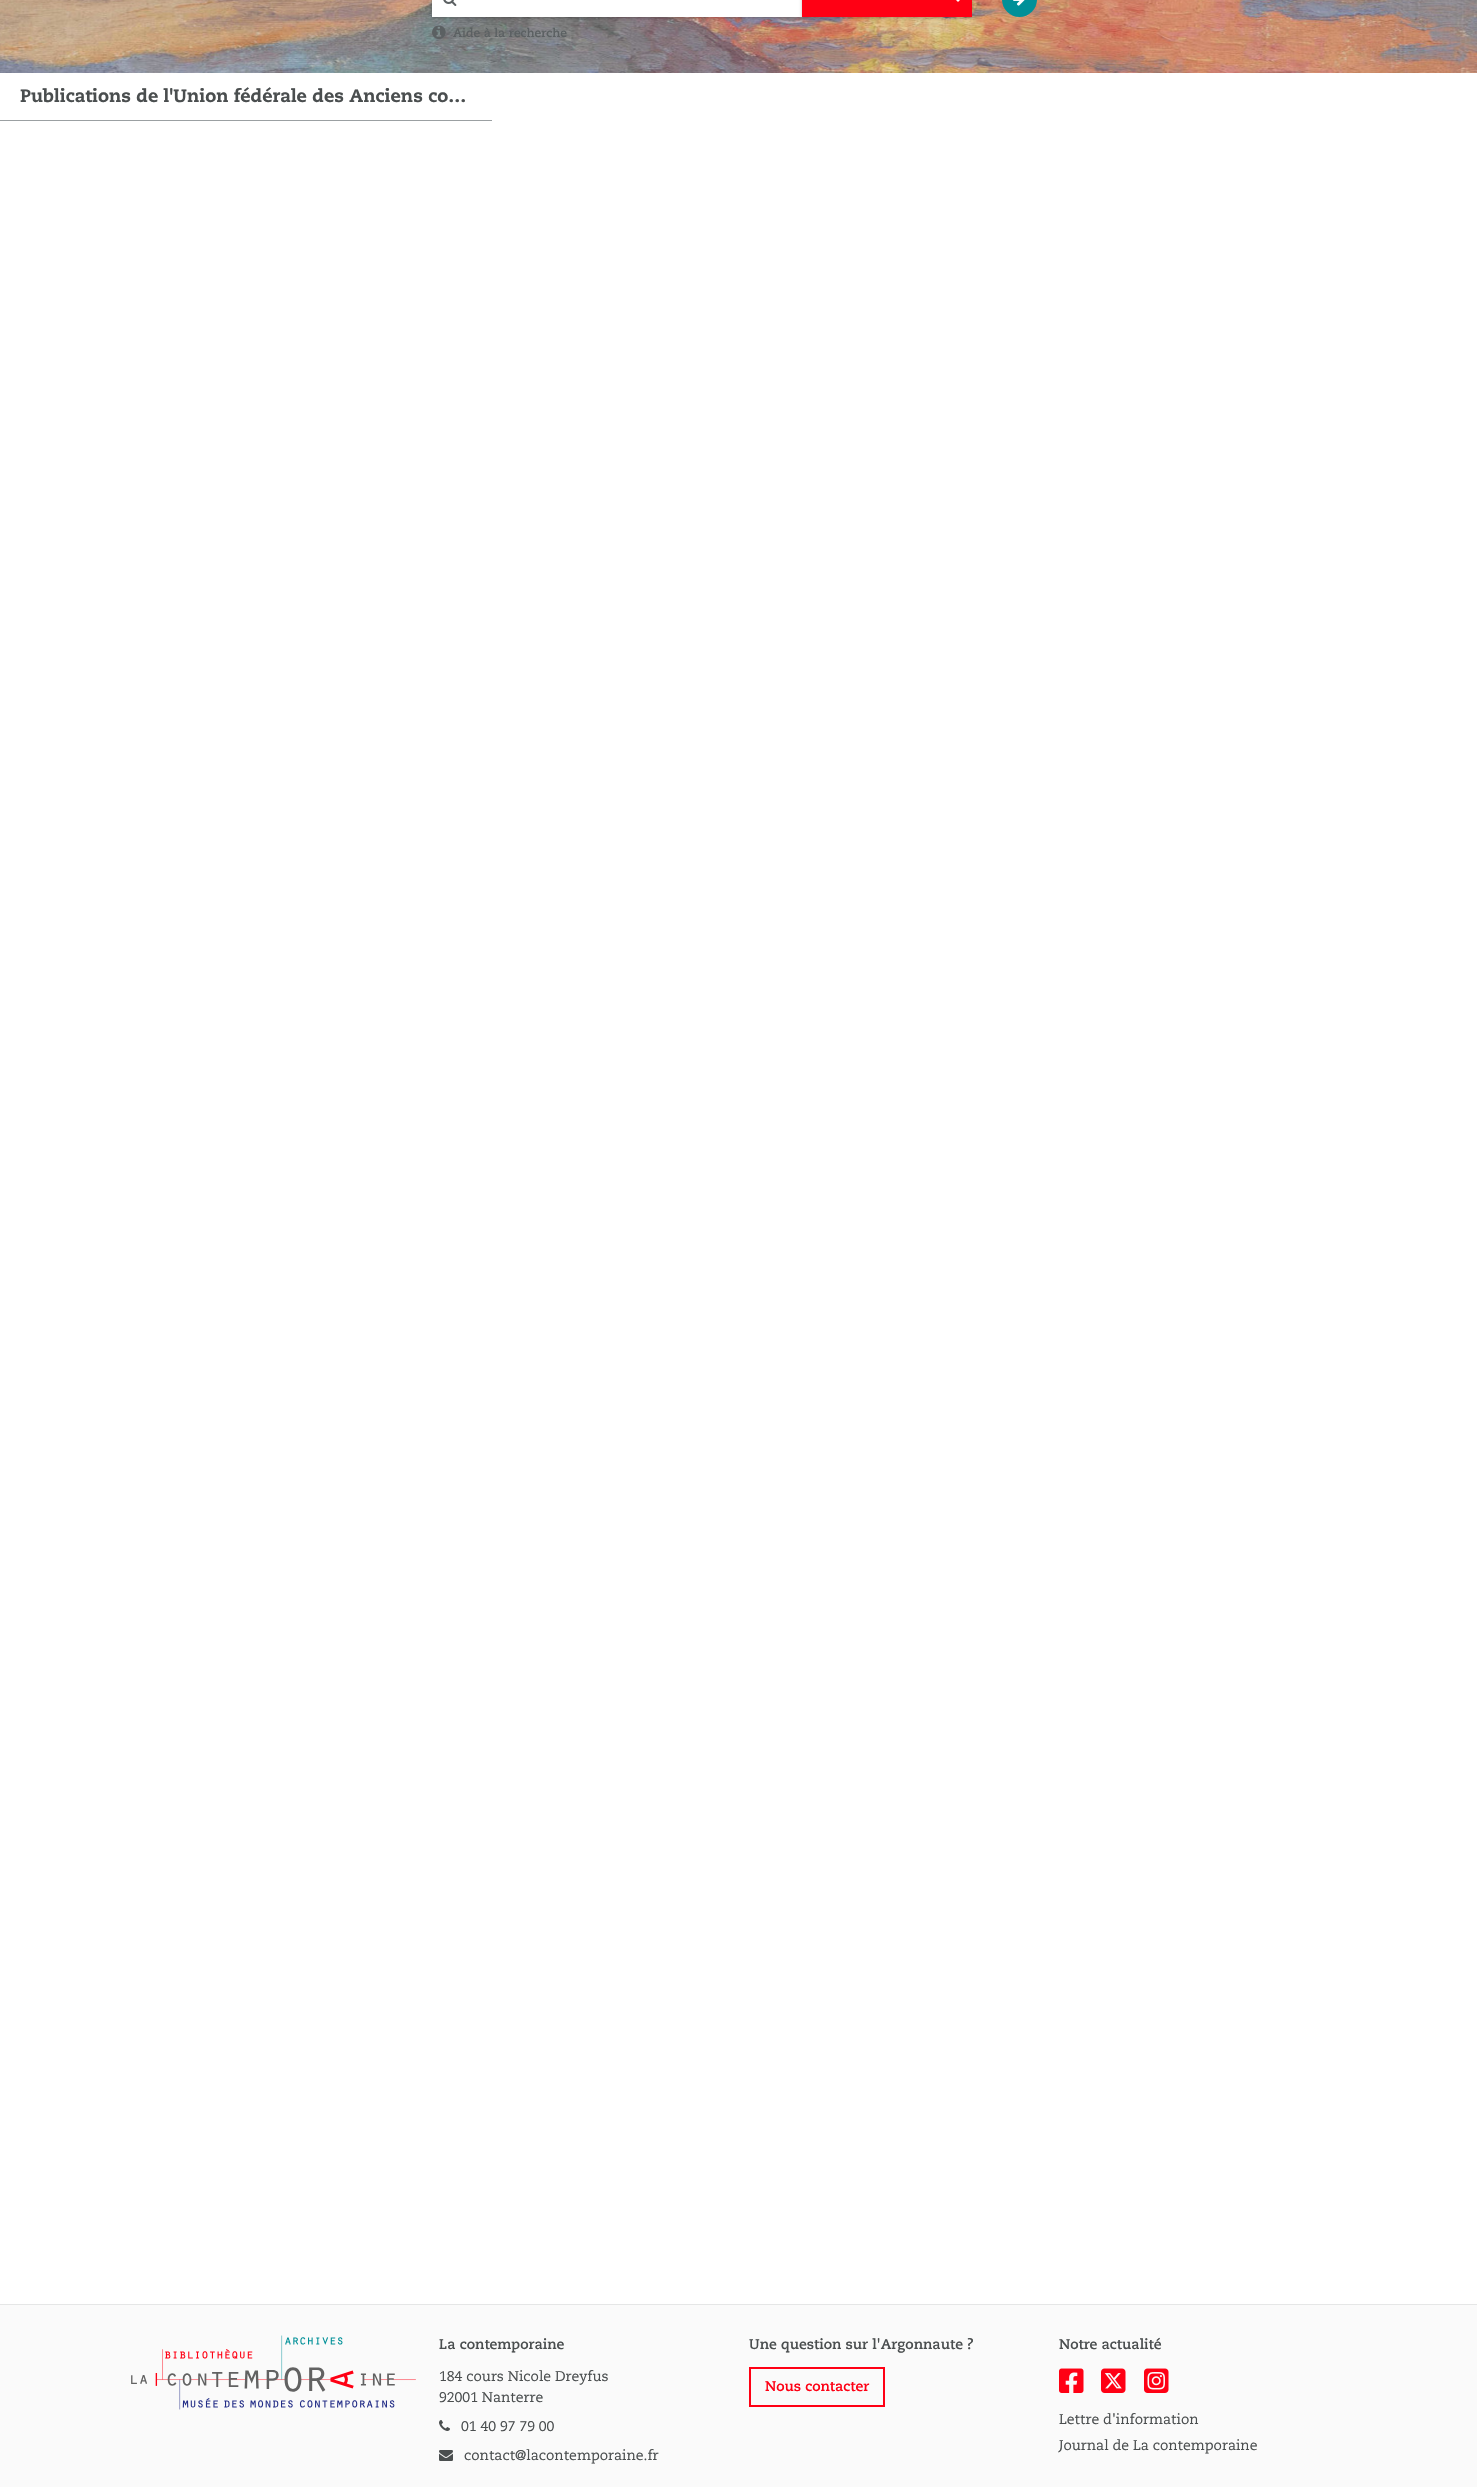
void draw(SkCanvas* canvas) {
    SkPaint paint;
    paint.setAntiAlias(true);
    canvas->clear(0xFFFFFFFF);
    canvas->drawImageRect(SkImages::DeferredFromEncodedData(SkData::MakeFromFileName("img1.png")), SkRect::MakeXYWH(0, 0, 1477, 73), SkSamplingOptions());
    paint.setColor(0x40000000);
    paint.setMaskFilter(SkMaskFilter::MakeBlur(kNormal_SkBlurStyle, 1.5f));
    canvas->drawRect(SkRect::MakeXYWH(432, -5, 370, 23), paint);
    paint.setMaskFilter(nullptr);
    paint.setColor(0xFFFFFFFF);
    canvas->drawRect(SkRect::MakeXYWH(432, 0, 370, 17), paint);
    canvas->drawImageRect(SkImages::DeferredFromEncodedData(SkData::MakeFromFileName("img2.png")), SkRect::MakeXYWH(443, 0, 14, 6), SkSamplingOptions());
    paint.setColor(0x40000000);
    paint.setMaskFilter(SkMaskFilter::MakeBlur(kNormal_SkBlurStyle, 1.5f));
    canvas->drawRect(SkRect::MakeXYWH(802, -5, 170, 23), paint);
    paint.setMaskFilter(nullptr);
    paint.setColor(0xFFFF0014);
    canvas->drawRect(SkRect::MakeXYWH(802, 0, 170, 17), paint);
    paint.setColor(0xFFFFFFFF);
    canvas->drawPath(SkPathBuilder().moveTo(954, -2).lineTo(962, -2).lineTo(958, 2).close().detach(), paint);
    paint.setColor(0xFF009098);
    canvas->drawCircle(1019.5f, -0.5f, 17.5f, paint);
    canvas->drawImageRect(SkImages::DeferredFromEncodedData(SkData::MakeFromFileName("img3.png")), SkRect::MakeXYWH(1013, 0, 12, 6), SkSamplingOptions());
    canvas->drawImageRect(SkImages::DeferredFromEncodedData(SkData::MakeFromFileName("img4.png")), SkRect::MakeXYWH(432, 25, 14, 14), SkSamplingOptions());
    SkFont font1(fontMgr->matchFamilyStyle("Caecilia", SkFontStyle::Bold()), 12);
    font1.setSubpixel(true);
    paint.setColor(0xFF5B6062);
    canvas->drawString("Aide à la recherche", 453, 37, font1, paint);
    paint.setColor(0xFF9BA0A2);
    canvas->drawRect(SkRect::MakeXYWH(0, 120, 492, 1), paint);
    SkFont font2(fontMgr->matchFamilyStyle("Caecilia", SkFontStyle(800, SkFontStyle::kNormal_Width, SkFontStyle::kUpright_Slant)), 18);
    font2.setSubpixel(true);
    paint.setColor(0xFF4A4E4F);
    canvas->drawString("Publications de l'Union fédérale des Anciens co…", 20, 102, font2, paint);
    paint.setColor(0xFFFAFAFA);
    canvas->drawRect(SkRect::MakeXYWH(0, 2305, 1477, 182), paint);
    paint.setColor(0xFFE5E6E6);
    canvas->drawRect(SkRect::MakeXYWH(0, 2304, 1477, 1), paint);
    canvas->drawImageRect(SkImages::DeferredFromEncodedData(SkData::MakeFromFileName("img5.png")), SkRect::MakeXYWH(131, 2335, 285, 75), SkSamplingOptions());
    SkFont font3(fontMgr->matchFamilyStyle("Caecilia", SkFontStyle::Bold()), 14);
    font3.setSubpixel(true);
    paint.setColor(0xFF4A4E4F);
    canvas->drawString("La contemporaine", 439, 2349, font3, paint);
    SkFont font4(fontMgr->matchFamilyStyle("Caecilia", SkFontStyle::Normal()), 14);
    font4.setSubpixel(true);
    canvas->drawString("184 cours Nicole Dreyfus", 439, 2381, font4, paint);
    canvas->drawString("92001 Nanterre", 439, 2402, font4, paint);
    canvas->drawImageRect(SkImages::DeferredFromEncodedData(SkData::MakeFromFileName("img6.png")), SkRect::MakeXYWH(439, 2420, 11, 11), SkSamplingOptions());
    canvas->drawString("01 40 97 79 00", 461, 2431, font4, paint);
    canvas->drawImageRect(SkImages::DeferredFromEncodedData(SkData::MakeFromFileName("img7.png")), SkRect::MakeXYWH(439, 2450, 14, 11), SkSamplingOptions());
    canvas->drawString("contact@lacontemporaine.fr", 464, 2460, font4, paint);
    canvas->drawString("Une question sur l'Argonnaute ?", 749, 2349, font3, paint);
    paint.setStyle(SkPaint::kStroke_Style);
    paint.setStrokeWidth(2);
    paint.setColor(0xFFFF0014);
    canvas->drawRect(SkRect::MakeXYWH(750, 2368, 134, 38), paint);
    paint.setStyle(SkPaint::kFill_Style);
    canvas->drawString("Nous contacter", 765, 2391, font3, paint);
    paint.setColor(0xFF4A4E4F);
    canvas->drawString("Notre actualité", 1059, 2349, font3, paint);
    canvas->drawImageRect(SkImages::DeferredFromEncodedData(SkData::MakeFromFileName("img8.png")), SkRect::MakeXYWH(1059, 2368, 25, 25), SkSamplingOptions());
    canvas->drawImageRect(SkImages::DeferredFromEncodedData(SkData::MakeFromFileName("img9.png")), SkRect::MakeXYWH(1101, 2368, 25, 25), SkSamplingOptions());
    canvas->drawImageRect(SkImages::DeferredFromEncodedData(SkData::MakeFromFileName("img10.png")), SkRect::MakeXYWH(1144, 2368, 25, 25), SkSamplingOptions());
    canvas->drawString("Lettre d'information", 1059, 2424, font4, paint);
    canvas->drawString("Journal de La contemporaine", 1059, 2450, font4, paint);
}
